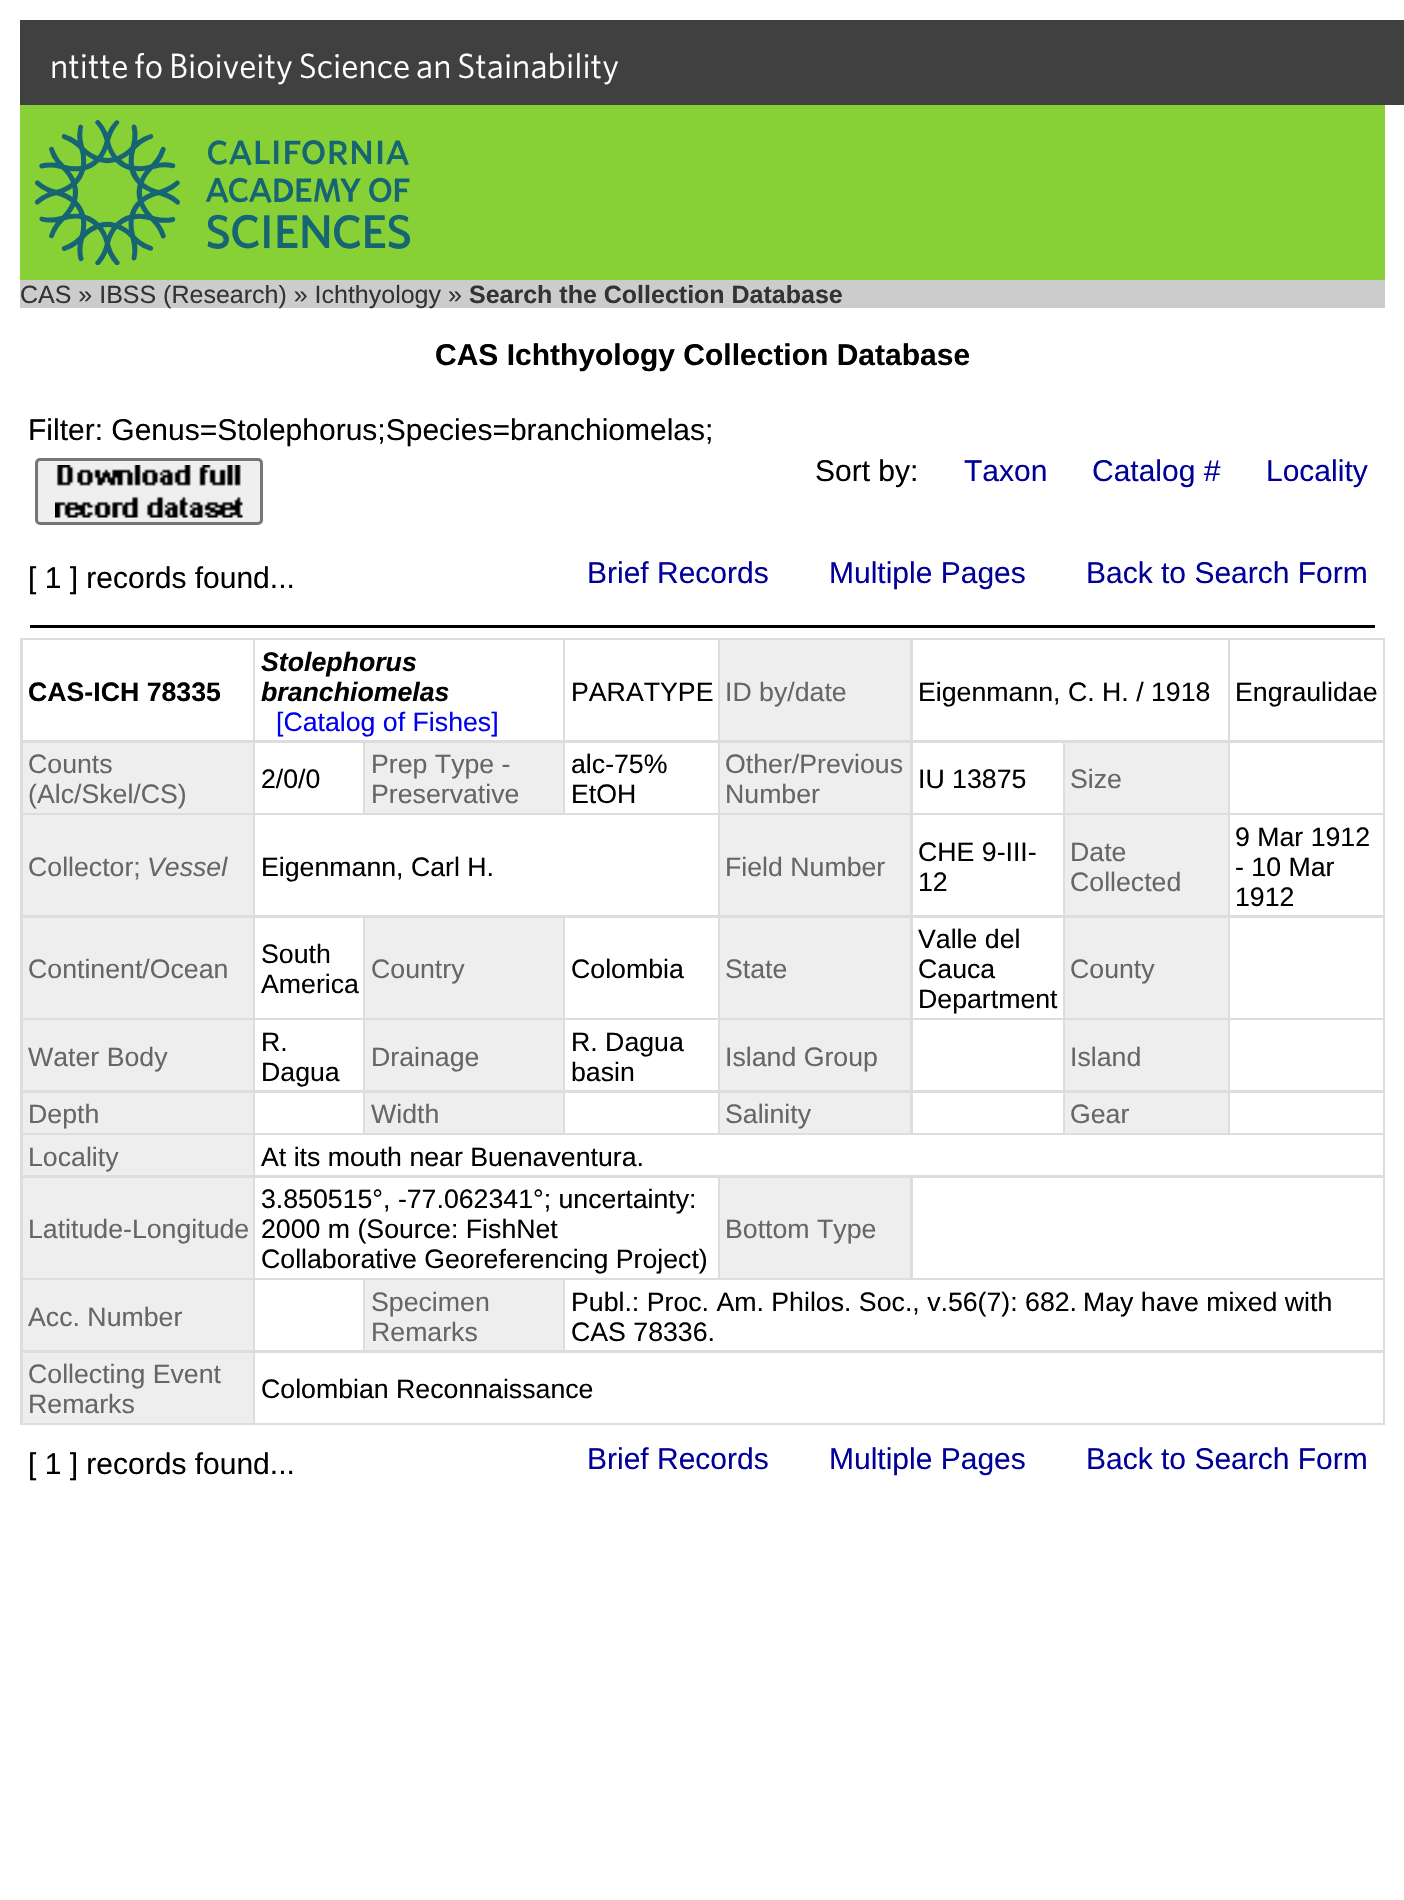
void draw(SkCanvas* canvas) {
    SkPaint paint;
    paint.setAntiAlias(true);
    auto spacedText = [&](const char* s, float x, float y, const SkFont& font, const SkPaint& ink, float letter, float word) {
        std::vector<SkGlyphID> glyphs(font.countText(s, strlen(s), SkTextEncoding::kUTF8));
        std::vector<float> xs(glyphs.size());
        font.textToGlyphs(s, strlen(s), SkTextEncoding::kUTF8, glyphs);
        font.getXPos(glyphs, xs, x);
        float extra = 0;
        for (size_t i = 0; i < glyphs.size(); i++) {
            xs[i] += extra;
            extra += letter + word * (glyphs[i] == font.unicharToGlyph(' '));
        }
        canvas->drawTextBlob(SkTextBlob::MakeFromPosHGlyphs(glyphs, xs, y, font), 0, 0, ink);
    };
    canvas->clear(0xFFFFFFFF);
    paint.setColor(0xFF404040);
    canvas->drawRect(SkRect::MakeXYWH(20, 20, 1384, 85), paint);
    SkFont font1(fontMgr->matchFamilyStyle("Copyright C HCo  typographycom", SkFontStyle(300, SkFontStyle::kNormal_Width, SkFontStyle::kUpright_Slant)), 35);
    font1.setSubpixel(true);
    paint.setColor(0xFFFFFFFF);
    spacedText("Institute for Biodiversity Science and Sustainability", 50, 78, font1, paint, 0, -2);
    paint.setColor(0xFF87D036);
    canvas->drawRect(SkRect::MakeXYWH(20, 105, 1365, 175), paint);
    canvas->drawImageRect(SkImages::DeferredFromEncodedData(SkData::MakeFromFileName("img1.png")), SkRect::MakeXYWH(35, 120, 375, 145), SkSamplingOptions());
    paint.setColor(0xFFCCCCCC);
    canvas->drawRect(SkRect::MakeXYWH(20, 280, 1365, 28), paint);
    SkFont font2(fontMgr->matchFamilyStyle("Liberation Sans", SkFontStyle::Normal()), 25);
    font2.setSubpixel(true);
    paint.setColor(0xFF333333);
    canvas->drawString("CAS » IBSS (Research) » Ichthyology »", 20, 303, font2, paint);
    SkFont font3(fontMgr->matchFamilyStyle("Liberation Sans", SkFontStyle::Bold()), 25);
    font3.setSubpixel(true);
    canvas->drawString("Search the Collection Database", 469, 303, font3, paint);
    SkFont font4(fontMgr->matchFamilyStyle("Liberation Sans", SkFontStyle::Bold()), 30);
    font4.setSubpixel(true);
    paint.setColor(0xFF000000);
    canvas->drawString("CAS Ichthyology Collection Database", 435, 365, font4, paint);
    SkFont font5(fontMgr->matchFamilyStyle("Liberation Sans", SkFontStyle::Normal()), 30);
    font5.setSubpixel(true);
    canvas->drawString("Filter: Genus=Stolephorus;Species=branchiomelas;", 28, 440, font5, paint);
    paint.setColor(0xFFEFEFEF);
    canvas->drawRoundRect(SkRect::MakeXYWH(36.5f, 459.5f, 225, 64), 3.5f, 3.5f, paint);
    paint.setStyle(SkPaint::kStroke_Style);
    paint.setStrokeWidth(3);
    paint.setColor(0xFF767676);
    canvas->drawRoundRect(SkRect::MakeXYWH(36.5f, 459.5f, 225, 64), 3.5f, 3.5f, paint);
    canvas->drawImageRect(SkImages::DeferredFromEncodedData(SkData::MakeFromFileName("img2.png")), SkRect::MakeXYWH(55, 465, 188, 53), SkSamplingOptions());
    paint.setStyle(SkPaint::kFill_Style);
    paint.setColor(0xFF000000);
    canvas->drawString("Sort by:", 815, 481, font5, paint);
    paint.setColor(0xFF000099);
    canvas->drawString("Taxon", 964, 481, font5, paint);
    canvas->drawString("Catalog #", 1092, 481, font5, paint);
    canvas->drawString("Locality", 1266, 481, font5, paint);
    paint.setColor(0xFF000000);
    canvas->drawString("[ 1 ] records found...", 28, 588, font5, paint);
    paint.setColor(0xFF000099);
    canvas->drawString("Brief Records", 587, 583, font5, paint);
    canvas->drawString("Multiple Pages", 829, 583, font5, paint);
    canvas->drawString("Back to Search Form", 1086, 583, font5, paint);
    paint.setColor(0xFF000000);
    canvas->drawRect(SkRect::MakeXYWH(30, 625, 1345, 3), paint);
    paint.setColor(0xFFDDDDDD);
    canvas->drawRect(SkRect::MakeXYWH(20, 638, 1365, 787), paint);
    paint.setColor(0xFFFFFFFF);
    canvas->drawRect(SkRect::MakeXYWH(23, 640, 230, 100), paint);
    SkFont font6(fontMgr->matchFamilyStyle("Liberation Sans", SkFontStyle::Bold()), 26.7f);
    font6.setSubpixel(true);
    paint.setColor(0xFF000000);
    canvas->drawString("CAS-ICH 78335", 28, 701, font6, paint);
    paint.setColor(0xFFFFFFFF);
    canvas->drawRect(SkRect::MakeXYWH(255, 640, 308, 100), paint);
    SkFont font7(fontMgr->matchFamilyStyle("Liberation Sans", SkFontStyle::BoldItalic()), 26.7f);
    font7.setSubpixel(true);
    paint.setColor(0xFF000000);
    canvas->drawString("Stolephorus", 261, 671, font7, paint);
    canvas->drawString("branchiomelas", 261, 701, font7, paint);
    SkFont font8(fontMgr->matchFamilyStyle("Liberation Sans", SkFontStyle::Normal()), 26.7f);
    font8.setSubpixel(true);
    paint.setColor(0xFF0000EE);
    canvas->drawString("[Catalog of Fishes]", 276, 731, font8, paint);
    paint.setColor(0xFFFFFFFF);
    canvas->drawRect(SkRect::MakeXYWH(565, 640, 153, 100), paint);
    paint.setColor(0xFF000000);
    canvas->drawString("PARATYPE", 571, 701, font8, paint);
    paint.setColor(0xFFEEEEEE);
    canvas->drawRect(SkRect::MakeXYWH(720, 640, 190, 100), paint);
    paint.setColor(0xFF666666);
    canvas->drawString("ID by/date", 725, 701, font8, paint);
    paint.setColor(0xFFFFFFFF);
    canvas->drawRect(SkRect::MakeXYWH(913, 640, 315, 100), paint);
    paint.setColor(0xFF000000);
    canvas->drawString("Eigenmann, C. H. / 1918", 918, 701, font8, paint);
    paint.setColor(0xFFFFFFFF);
    canvas->drawRect(SkRect::MakeXYWH(1230, 640, 153, 100), paint);
    paint.setColor(0xFF000000);
    canvas->drawString("Engraulidae", 1235, 701, font8, paint);
    paint.setColor(0xFFEEEEEE);
    canvas->drawRect(SkRect::MakeXYWH(23, 743, 230, 70), paint);
    paint.setColor(0xFF666666);
    canvas->drawString("Counts", 28, 773, font8, paint);
    canvas->drawString("(Alc/Skel/CS)", 28, 803, font8, paint);
    paint.setColor(0xFFFFFFFF);
    canvas->drawRect(SkRect::MakeXYWH(255, 743, 108, 70), paint);
    paint.setColor(0xFF000000);
    canvas->drawString("2/0/0", 261, 788, font8, paint);
    paint.setColor(0xFFEEEEEE);
    canvas->drawRect(SkRect::MakeXYWH(365, 743, 198, 70), paint);
    paint.setColor(0xFF666666);
    canvas->drawString("Prep Type -", 371, 773, font8, paint);
    canvas->drawString("Preservative", 371, 803, font8, paint);
    paint.setColor(0xFFFFFFFF);
    canvas->drawRect(SkRect::MakeXYWH(565, 743, 153, 70), paint);
    paint.setColor(0xFF000000);
    canvas->drawString("alc-75%", 571, 773, font8, paint);
    canvas->drawString("EtOH", 571, 803, font8, paint);
    paint.setColor(0xFFEEEEEE);
    canvas->drawRect(SkRect::MakeXYWH(720, 743, 190, 70), paint);
    paint.setColor(0xFF666666);
    canvas->drawString("Other/Previous", 725, 773, font8, paint);
    canvas->drawString("Number", 725, 803, font8, paint);
    paint.setColor(0xFFFFFFFF);
    canvas->drawRect(SkRect::MakeXYWH(913, 743, 150, 70), paint);
    paint.setColor(0xFF000000);
    canvas->drawString("IU 13875", 918, 788, font8, paint);
    paint.setColor(0xFFEEEEEE);
    canvas->drawRect(SkRect::MakeXYWH(1065, 743, 163, 70), paint);
    paint.setColor(0xFF666666);
    canvas->drawString("Size", 1070, 788, font8, paint);
    paint.setColor(0xFFFFFFFF);
    canvas->drawRect(SkRect::MakeXYWH(1230, 743, 153, 70), paint);
    paint.setColor(0xFFEEEEEE);
    canvas->drawRect(SkRect::MakeXYWH(23, 815, 230, 100), paint);
    paint.setColor(0xFF666666);
    canvas->drawString("Collector;", 28, 876, font8, paint);
    SkFont font9(fontMgr->matchFamilyStyle("Liberation Sans", SkFontStyle::Italic()), 26.7f);
    font9.setSubpixel(true);
    canvas->drawString("Vessel", 147, 876, font9, paint);
    paint.setColor(0xFFFFFFFF);
    canvas->drawRect(SkRect::MakeXYWH(255, 815, 463, 100), paint);
    paint.setColor(0xFF000000);
    canvas->drawString("Eigenmann, Carl H.", 261, 876, font8, paint);
    paint.setColor(0xFFEEEEEE);
    canvas->drawRect(SkRect::MakeXYWH(720, 815, 190, 100), paint);
    paint.setColor(0xFF666666);
    canvas->drawString("Field Number", 725, 876, font8, paint);
    paint.setColor(0xFFFFFFFF);
    canvas->drawRect(SkRect::MakeXYWH(913, 815, 150, 100), paint);
    paint.setColor(0xFF000000);
    canvas->drawString("CHE 9-III-", 918, 861, font8, paint);
    canvas->drawString("12", 918, 891, font8, paint);
    paint.setColor(0xFFEEEEEE);
    canvas->drawRect(SkRect::MakeXYWH(1065, 815, 163, 100), paint);
    paint.setColor(0xFF666666);
    canvas->drawString("Date", 1070, 861, font8, paint);
    canvas->drawString("Collected", 1070, 891, font8, paint);
    paint.setColor(0xFFFFFFFF);
    canvas->drawRect(SkRect::MakeXYWH(1230, 815, 153, 100), paint);
    paint.setColor(0xFF000000);
    canvas->drawString("9 Mar 1912", 1235, 846, font8, paint);
    canvas->drawString("- 10 Mar", 1235, 876, font8, paint);
    canvas->drawString("1912", 1235, 906, font8, paint);
    paint.setColor(0xFFEEEEEE);
    canvas->drawRect(SkRect::MakeXYWH(23, 918, 230, 100), paint);
    paint.setColor(0xFF666666);
    canvas->drawString("Continent/Ocean", 28, 978, font8, paint);
    paint.setColor(0xFFFFFFFF);
    canvas->drawRect(SkRect::MakeXYWH(255, 918, 108, 100), paint);
    paint.setColor(0xFF000000);
    canvas->drawString("South", 261, 963, font8, paint);
    canvas->drawString("America", 261, 993, font8, paint);
    paint.setColor(0xFFEEEEEE);
    canvas->drawRect(SkRect::MakeXYWH(365, 918, 198, 100), paint);
    paint.setColor(0xFF666666);
    canvas->drawString("Country", 371, 978, font8, paint);
    paint.setColor(0xFFFFFFFF);
    canvas->drawRect(SkRect::MakeXYWH(565, 918, 153, 100), paint);
    paint.setColor(0xFF000000);
    canvas->drawString("Colombia", 571, 978, font8, paint);
    paint.setColor(0xFFEEEEEE);
    canvas->drawRect(SkRect::MakeXYWH(720, 918, 190, 100), paint);
    paint.setColor(0xFF666666);
    canvas->drawString("State", 725, 978, font8, paint);
    paint.setColor(0xFFFFFFFF);
    canvas->drawRect(SkRect::MakeXYWH(913, 918, 150, 100), paint);
    paint.setColor(0xFF000000);
    canvas->drawString("Valle del", 918, 948, font8, paint);
    canvas->drawString("Cauca", 918, 978, font8, paint);
    canvas->drawString("Department", 918, 1008, font8, paint);
    paint.setColor(0xFFEEEEEE);
    canvas->drawRect(SkRect::MakeXYWH(1065, 918, 163, 100), paint);
    paint.setColor(0xFF666666);
    canvas->drawString("County", 1070, 978, font8, paint);
    paint.setColor(0xFFFFFFFF);
    canvas->drawRect(SkRect::MakeXYWH(1230, 918, 153, 100), paint);
    paint.setColor(0xFFEEEEEE);
    canvas->drawRect(SkRect::MakeXYWH(23, 1020, 230, 70), paint);
    paint.setColor(0xFF666666);
    canvas->drawString("Water Body", 28, 1066, font8, paint);
    paint.setColor(0xFFFFFFFF);
    canvas->drawRect(SkRect::MakeXYWH(255, 1020, 108, 70), paint);
    paint.setColor(0xFF000000);
    canvas->drawString("R.", 261, 1051, font8, paint);
    canvas->drawString("Dagua", 261, 1081, font8, paint);
    paint.setColor(0xFFEEEEEE);
    canvas->drawRect(SkRect::MakeXYWH(365, 1020, 198, 70), paint);
    paint.setColor(0xFF666666);
    canvas->drawString("Drainage", 371, 1066, font8, paint);
    paint.setColor(0xFFFFFFFF);
    canvas->drawRect(SkRect::MakeXYWH(565, 1020, 153, 70), paint);
    paint.setColor(0xFF000000);
    canvas->drawString("R. Dagua", 571, 1051, font8, paint);
    canvas->drawString("basin", 571, 1081, font8, paint);
    paint.setColor(0xFFEEEEEE);
    canvas->drawRect(SkRect::MakeXYWH(720, 1020, 190, 70), paint);
    paint.setColor(0xFF666666);
    canvas->drawString("Island Group", 725, 1066, font8, paint);
    paint.setColor(0xFFFFFFFF);
    canvas->drawRect(SkRect::MakeXYWH(913, 1020, 150, 70), paint);
    paint.setColor(0xFFEEEEEE);
    canvas->drawRect(SkRect::MakeXYWH(1065, 1020, 163, 70), paint);
    paint.setColor(0xFF666666);
    canvas->drawString("Island", 1070, 1066, font8, paint);
    paint.setColor(0xFFFFFFFF);
    canvas->drawRect(SkRect::MakeXYWH(1230, 1020, 153, 70), paint);
    paint.setColor(0xFFEEEEEE);
    canvas->drawRect(SkRect::MakeXYWH(23, 1093, 230, 40), paint);
    paint.setColor(0xFF666666);
    canvas->drawString("Depth", 28, 1123, font8, paint);
    paint.setColor(0xFFFFFFFF);
    canvas->drawRect(SkRect::MakeXYWH(255, 1093, 108, 40), paint);
    paint.setColor(0xFFEEEEEE);
    canvas->drawRect(SkRect::MakeXYWH(365, 1093, 198, 40), paint);
    paint.setColor(0xFF666666);
    canvas->drawString("Width", 371, 1123, font8, paint);
    paint.setColor(0xFFFFFFFF);
    canvas->drawRect(SkRect::MakeXYWH(565, 1093, 153, 40), paint);
    paint.setColor(0xFFEEEEEE);
    canvas->drawRect(SkRect::MakeXYWH(720, 1093, 190, 40), paint);
    paint.setColor(0xFF666666);
    canvas->drawString("Salinity", 725, 1123, font8, paint);
    paint.setColor(0xFFFFFFFF);
    canvas->drawRect(SkRect::MakeXYWH(913, 1093, 150, 40), paint);
    paint.setColor(0xFFEEEEEE);
    canvas->drawRect(SkRect::MakeXYWH(1065, 1093, 163, 40), paint);
    paint.setColor(0xFF666666);
    canvas->drawString("Gear", 1070, 1123, font8, paint);
    paint.setColor(0xFFFFFFFF);
    canvas->drawRect(SkRect::MakeXYWH(1230, 1093, 153, 40), paint);
    paint.setColor(0xFFEEEEEE);
    canvas->drawRect(SkRect::MakeXYWH(23, 1135, 230, 40), paint);
    paint.setColor(0xFF666666);
    canvas->drawString("Locality", 28, 1166, font8, paint);
    paint.setColor(0xFFFFFFFF);
    canvas->drawRect(SkRect::MakeXYWH(255, 1135, 1128, 40), paint);
    paint.setColor(0xFF000000);
    canvas->drawString("At its mouth near Buenaventura.", 261, 1166, font8, paint);
    paint.setColor(0xFFEEEEEE);
    canvas->drawRect(SkRect::MakeXYWH(23, 1178, 230, 100), paint);
    paint.setColor(0xFF666666);
    canvas->drawString("Latitude-Longitude", 28, 1238, font8, paint);
    paint.setColor(0xFFFFFFFF);
    canvas->drawRect(SkRect::MakeXYWH(255, 1178, 463, 100), paint);
    paint.setColor(0xFF000000);
    canvas->drawString("3.850515°, -77.062341°; uncertainty:", 261, 1208, font8, paint);
    canvas->drawString("2000 m (Source: FishNet", 261, 1238, font8, paint);
    canvas->drawString("Collaborative Georeferencing Project)", 261, 1268, font8, paint);
    paint.setColor(0xFFEEEEEE);
    canvas->drawRect(SkRect::MakeXYWH(720, 1178, 190, 100), paint);
    paint.setColor(0xFF666666);
    canvas->drawString("Bottom Type", 725, 1238, font8, paint);
    paint.setColor(0xFFFFFFFF);
    canvas->drawRect(SkRect::MakeXYWH(913, 1178, 470, 100), paint);
    paint.setColor(0xFFEEEEEE);
    canvas->drawRect(SkRect::MakeXYWH(23, 1280, 230, 70), paint);
    paint.setColor(0xFF666666);
    canvas->drawString("Acc. Number", 28, 1326, font8, paint);
    paint.setColor(0xFFFFFFFF);
    canvas->drawRect(SkRect::MakeXYWH(255, 1280, 108, 70), paint);
    paint.setColor(0xFFEEEEEE);
    canvas->drawRect(SkRect::MakeXYWH(365, 1280, 198, 70), paint);
    paint.setColor(0xFF666666);
    canvas->drawString("Specimen", 371, 1311, font8, paint);
    canvas->drawString("Remarks", 371, 1341, font8, paint);
    paint.setColor(0xFFFFFFFF);
    canvas->drawRect(SkRect::MakeXYWH(565, 1280, 818, 70), paint);
    paint.setColor(0xFF000000);
    canvas->drawString("Publ.: Proc. Am. Philos. Soc., v.56(7): 682.", 571, 1311, font8, paint);
    canvas->drawString("May have mixed with", 1083, 1311, font8, paint);
    canvas->drawString("CAS 78336.", 571, 1341, font8, paint);
    paint.setColor(0xFFEEEEEE);
    canvas->drawRect(SkRect::MakeXYWH(23, 1353, 230, 70), paint);
    paint.setColor(0xFF666666);
    canvas->drawString("Collecting Event", 28, 1383, font8, paint);
    canvas->drawString("Remarks", 28, 1413, font8, paint);
    paint.setColor(0xFFFFFFFF);
    canvas->drawRect(SkRect::MakeXYWH(255, 1353, 1128, 70), paint);
    paint.setColor(0xFF000000);
    canvas->drawString("Colombian Reconnaissance", 261, 1398, font8, paint);
    canvas->drawString("[ 1 ] records found...", 28, 1474, font5, paint);
    paint.setColor(0xFF000099);
    canvas->drawString("Brief Records", 587, 1469, font5, paint);
    canvas->drawString("Multiple Pages", 829, 1469, font5, paint);
    canvas->drawString("Back to Search Form", 1086, 1469, font5, paint);
}
